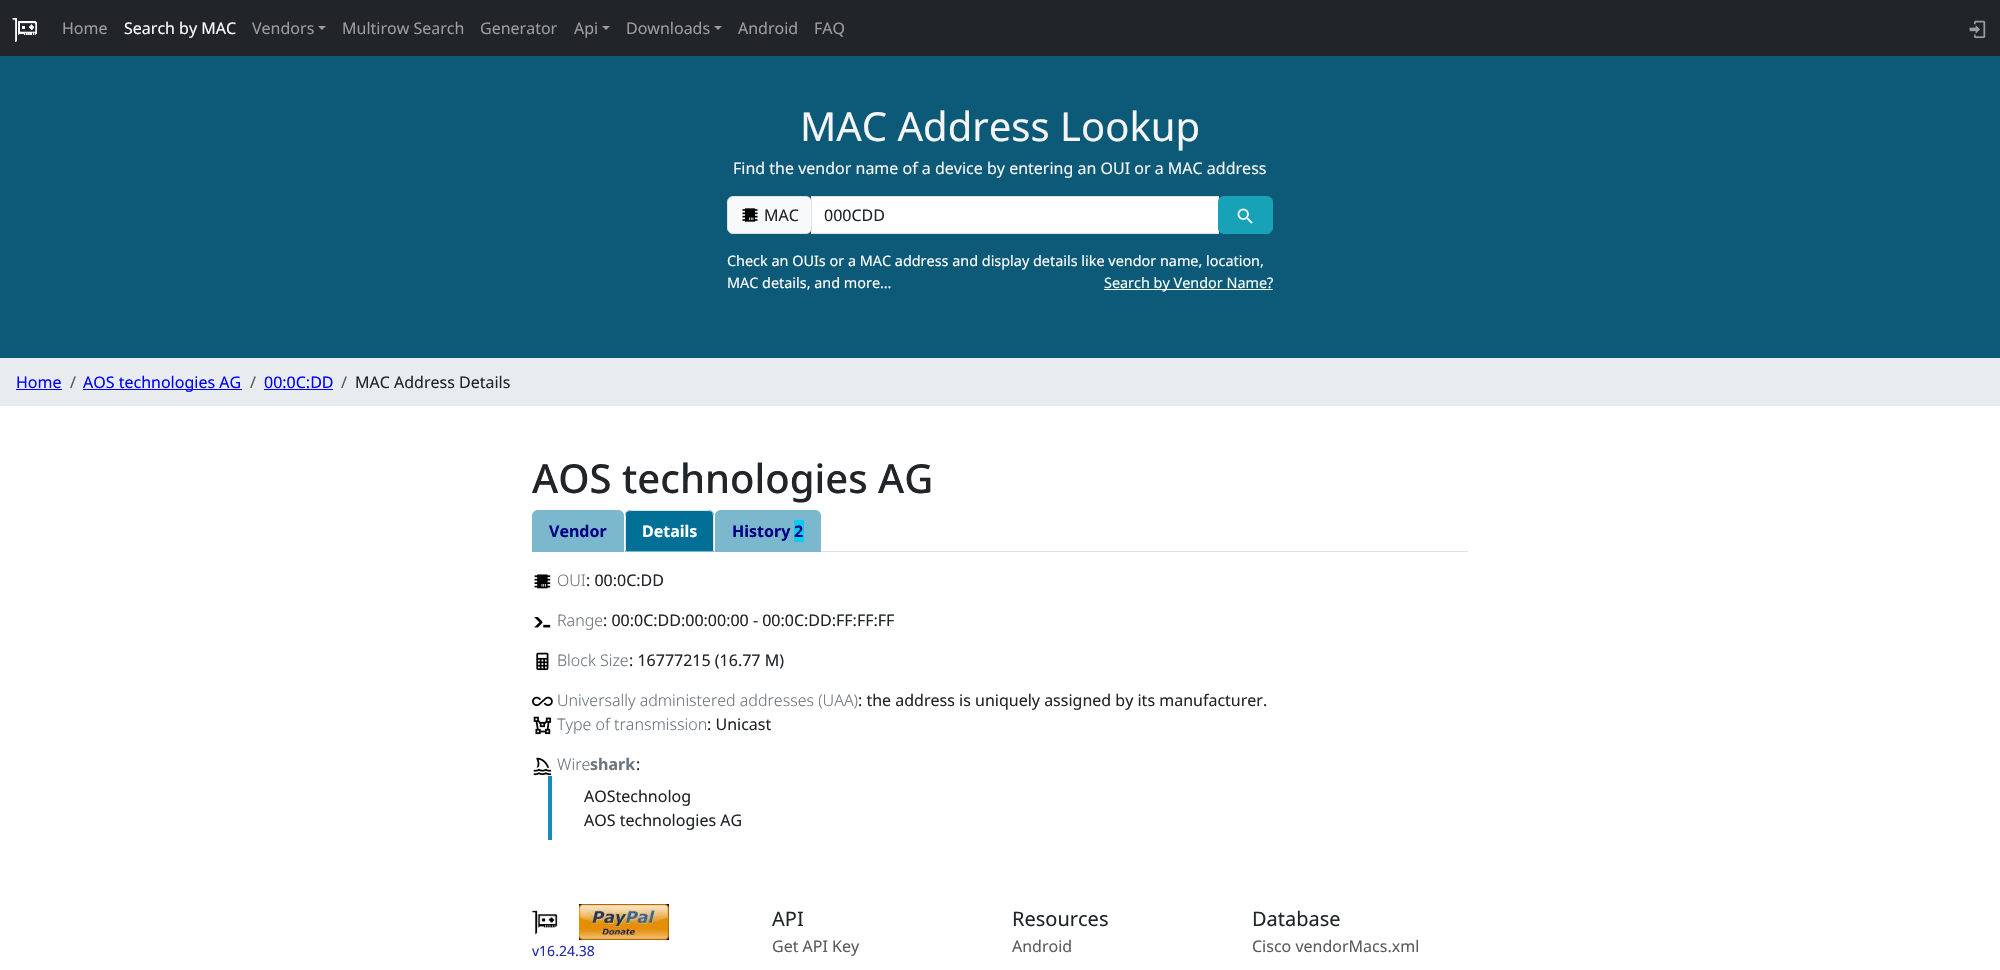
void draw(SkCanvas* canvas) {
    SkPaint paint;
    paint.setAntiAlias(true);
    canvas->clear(0xFFFFFFFF);
    paint.setColor(0xFF212529);
    canvas->drawRect(SkRect::MakeXYWH(0, 0, 2000, 56), paint);
    canvas->drawImageRect(SkImages::DeferredFromEncodedData(SkData::MakeFromFileName("img1.png")), SkRect::MakeXYWH(12, 18, 25, 24), SkSamplingOptions());
    SkFont font1(fontMgr->matchFamilyStyle("Noto Sans", SkFontStyle::Normal()), 16);
    font1.setSubpixel(true);
    paint.setColor(0xFF9B9D9F);
    canvas->drawString("Home", 62, 34, font1, paint);
    paint.setColor(0xFFFFFFFF);
    canvas->drawString("Search by MAC", 124, 34, font1, paint);
    paint.setColor(0xFF9B9D9F);
    canvas->drawString("Vendors", 252, 34, font1, paint);
    canvas->drawPath(SkPathBuilder().moveTo(318, 26).lineTo(326, 26).lineTo(322, 30).close().detach(), paint);
    canvas->drawString("Multirow Search", 342, 34, font1, paint);
    canvas->drawString("Generator", 480, 34, font1, paint);
    canvas->drawString("Api", 574, 34, font1, paint);
    canvas->drawPath(SkPathBuilder().moveTo(602, 26).lineTo(610, 26).lineTo(606, 30).close().detach(), paint);
    canvas->drawString("Downloads", 626, 34, font1, paint);
    canvas->drawPath(SkPathBuilder().moveTo(714, 26).lineTo(722, 26).lineTo(718, 30).close().detach(), paint);
    canvas->drawString("Android", 738, 34, font1, paint);
    canvas->drawString("FAQ", 814, 34, font1, paint);
    canvas->drawImageRect(SkImages::DeferredFromEncodedData(SkData::MakeFromFileName("img2.png")), SkRect::MakeXYWH(1969, 20, 17, 19), SkSamplingOptions());
    paint.setColor(0xFF0D5A78);
    canvas->drawRect(SkRect::MakeXYWH(0, 56, 2000, 302), paint);
    SkFont font2(fontMgr->matchFamilyStyle("Noto Sans", SkFontStyle::Normal()), 40);
    font2.setSubpixel(true);
    paint.setColor(0xFFF5F5F5);
    canvas->drawString("MAC Address Lookup", 800, 141, font2, paint);
    canvas->drawString("Find the vendor name of a device by entering an OUI or a MAC address", 733, 174, font1, paint);
    paint.setColor(0xFFF8F9FA);
    canvas->drawRoundRect(SkRect::MakeXYWH(727.5f, 196.5f, 84, 37), 5.5f, 5.5f, paint);
    paint.setStyle(SkPaint::kStroke_Style);
    paint.setStrokeWidth(1);
    paint.setColor(0xFFDEE2E6);
    canvas->drawRoundRect(SkRect::MakeXYWH(727.5f, 196.5f, 84, 37), 5.5f, 5.5f, paint);
    canvas->drawImageRect(SkImages::DeferredFromEncodedData(SkData::MakeFromFileName("img3.png")), SkRect::MakeXYWH(742, 208, 16, 14), SkSamplingOptions());
    paint.setStyle(SkPaint::kFill_Style);
    paint.setColor(0xFF212529);
    canvas->drawString("MAC", 764, 221, font1, paint);
    paint.setColor(0xFFFFFFFF);
    canvas->drawRect(SkRect::MakeXYWH(811.5f, 196.5f, 407, 37), paint);
    paint.setStyle(SkPaint::kStroke_Style);
    paint.setColor(0xFFDEE2E6);
    canvas->drawRect(SkRect::MakeXYWH(811.5f, 196.5f, 407, 37), paint);
    paint.setStyle(SkPaint::kFill_Style);
    paint.setColor(0xFF212529);
    canvas->drawString("000CDD", 824, 221, font1, paint);
    paint.setColor(0xFF17A2B8);
    canvas->drawRoundRect(SkRect::MakeXYWH(1218.5f, 196.5f, 54, 37), 5.5f, 5.5f, paint);
    paint.setStyle(SkPaint::kStroke_Style);
    canvas->drawRoundRect(SkRect::MakeXYWH(1218.5f, 196.5f, 54, 37), 5.5f, 5.5f, paint);
    canvas->drawImageRect(SkImages::DeferredFromEncodedData(SkData::MakeFromFileName("img4.png")), SkRect::MakeXYWH(1237, 208, 16, 16), SkSamplingOptions());
    SkFont font3(fontMgr->matchFamilyStyle("Noto Sans", SkFontStyle::Normal()), 14.4f);
    font3.setSubpixel(true);
    paint.setStyle(SkPaint::kFill_Style);
    paint.setColor(0xFFFFFFFF);
    canvas->drawString("Check an OUIs or a MAC address and display details like vendor name, location,", 727, 266, font3, paint);
    canvas->drawString("MAC details, and more…", 727, 288, font3, paint);
    paint.setColor(0xFFF5FFFA);
    canvas->drawRect(SkRect::MakeXYWH(1104, 289, 169, 1), paint);
    canvas->drawString("Search by Vendor Name?", 1104, 288, font3, paint);
    paint.setColor(0xFFE9ECEF);
    canvas->drawRect(SkRect::MakeXYWH(0, 358, 2000, 48), paint);
    paint.setColor(0xFF0000FF);
    canvas->drawString("Home", 16, 388, font1, paint);
    canvas->drawRect(SkRect::MakeXYWH(16, 389, 46, 1), paint);
    paint.setColor(0xFF53575B);
    canvas->drawString("/", 70, 388, font1, paint);
    paint.setColor(0xFF0000FF);
    canvas->drawRect(SkRect::MakeXYWH(83, 389, 159, 1), paint);
    canvas->drawString("AOS technologies AG", 83, 388, font1, paint);
    paint.setColor(0xFF53575B);
    canvas->drawString("/", 250, 388, font1, paint);
    paint.setColor(0xFF0000FF);
    canvas->drawString("00:0C:DD", 264, 388, font1, paint);
    canvas->drawRect(SkRect::MakeXYWH(264, 389, 69, 1), paint);
    paint.setColor(0xFF53575B);
    canvas->drawString("/", 341, 388, font1, paint);
    paint.setColor(0xFF212529);
    canvas->drawString("MAC Address Details", 355, 388, font1, paint);
    SkFont font4(fontMgr->matchFamilyStyle("Noto Sans", SkFontStyle(500, SkFontStyle::kNormal_Width, SkFontStyle::kUpright_Slant)), 40);
    font4.setSubpixel(true);
    canvas->drawString("AOS technologies AG", 532, 493, font4, paint);
    paint.setColor(0xFFDEE2E6);
    canvas->drawRect(SkRect::MakeXYWH(624, 551, 844, 1), paint);
    paint.setColor(0xFF7BB7CD);
    canvas->drawPath(SkPathBuilder().moveTo(538, 510).lineTo(618, 510).cubicTo(621.5f, 510, 624, 512.5f, 624, 516).lineTo(624, 552).lineTo(532, 552).lineTo(532, 516).cubicTo(532, 512.5f, 534.5f, 510, 538, 510).close().detach(), paint);
    SkFont font5(fontMgr->matchFamilyStyle("Noto Sans", SkFontStyle::Bold()), 16);
    font5.setSubpixel(true);
    paint.setColor(0xFF000080);
    canvas->drawString("Vendor", 549, 537, font5, paint);
    paint.setColor(0xFF026F97);
    canvas->drawPath(SkPathBuilder().moveTo(631, 510).lineTo(708, 510).cubicTo(711.5f, 510, 714, 512.5f, 714, 516).lineTo(714, 552).lineTo(625, 552).lineTo(625, 516).cubicTo(625, 512.5f, 627.5f, 510, 631, 510).close().detach(), paint);
    paint.setColor(0xFFDEE2E6);
    canvas->drawPath(SkPathBuilder().moveTo(631, 510).cubicTo(630, 510, 628, 511, 627, 512).lineTo(630, 511).lineTo(709, 511).lineTo(712, 512).cubicTo(711, 511, 710, 510, 708, 510).close().detach(), paint);
    canvas->drawPath(SkPathBuilder().moveTo(714, 552).lineTo(714, 516).cubicTo(714, 514, 713, 513, 712, 512).cubicTo(712, 513, 713, 514, 713, 516).lineTo(713, 551).close().detach(), paint);
    paint.setColor(0xFF7BB7CD);
    canvas->drawPath(SkPathBuilder().moveTo(714, 552).lineTo(713, 551).lineTo(626, 551).lineTo(625, 552).close().detach(), paint);
    paint.setColor(0xFFDEE2E6);
    canvas->drawPath(SkPathBuilder().moveTo(625, 552).lineTo(626, 551).lineTo(626, 516).cubicTo(626, 514, 626, 513, 627, 512).cubicTo(626, 513, 625, 514, 625, 516).close().detach(), paint);
    paint.setColor(0xFFFFFFFF);
    canvas->drawString("Details", 642, 537, font5, paint);
    paint.setColor(0xFF7BB7CD);
    canvas->drawPath(SkPathBuilder().moveTo(721, 510).lineTo(815, 510).cubicTo(818.5f, 510, 821, 512.5f, 821, 516).lineTo(821, 552).lineTo(715, 552).lineTo(715, 516).cubicTo(715, 512.5f, 717.5f, 510, 721, 510).close().detach(), paint);
    paint.setColor(0xFF000080);
    canvas->drawString("History", 732, 537, font5, paint);
    paint.setColor(0xFF0DCAF0);
    canvas->drawRect(SkRect::MakeXYWH(794, 520, 10, 22), paint);
    paint.setColor(0xFF000080);
    canvas->drawString("2", 794, 537, font5, paint);
    canvas->drawImageRect(SkImages::DeferredFromEncodedData(SkData::MakeFromFileName("img5.png")), SkRect::MakeXYWH(534, 574, 17, 15), SkSamplingOptions());
    SkFont font6(fontMgr->matchFamilyStyle("Noto Sans", SkFontStyle(300, SkFontStyle::kNormal_Width, SkFontStyle::kUpright_Slant)), 16);
    font6.setSubpixel(true);
    paint.setColor(0xFF6C757D);
    canvas->drawString("OUI", 557, 586, font6, paint);
    paint.setColor(0xFF212529);
    canvas->drawString(": 00:0C:DD", 586, 586, font1, paint);
    canvas->drawImageRect(SkImages::DeferredFromEncodedData(SkData::MakeFromFileName("img6.png")), SkRect::MakeXYWH(534, 617, 17, 11), SkSamplingOptions());
    paint.setColor(0xFF6C757D);
    canvas->drawString("Range", 557, 626, font6, paint);
    paint.setColor(0xFF212529);
    canvas->drawString(": 00:0C:DD:00:00:00 - 00:0C:DD:FF:FF:FF", 603, 626, font1, paint);
    canvas->drawImageRect(SkImages::DeferredFromEncodedData(SkData::MakeFromFileName("img7.png")), SkRect::MakeXYWH(536, 652, 13, 19), SkSamplingOptions());
    paint.setColor(0xFF6C757D);
    canvas->drawString("Block Size", 557, 666, font6, paint);
    paint.setColor(0xFF212529);
    canvas->drawString(": 16777215 (16.77 M)", 629, 666, font1, paint);
    canvas->drawImageRect(SkImages::DeferredFromEncodedData(SkData::MakeFromFileName("img8.png")), SkRect::MakeXYWH(532, 696, 21, 11), SkSamplingOptions());
    paint.setColor(0xFF6C757D);
    canvas->drawString("Universally administered addresses (UAA)", 557, 706, font6, paint);
    paint.setColor(0xFF212529);
    canvas->drawString(": the address is uniquely assigned by its manufacturer.", 858, 706, font1, paint);
    canvas->drawImageRect(SkImages::DeferredFromEncodedData(SkData::MakeFromFileName("img9.png")), SkRect::MakeXYWH(533, 716, 19, 19), SkSamplingOptions());
    paint.setColor(0xFF6C757D);
    canvas->drawString("Type of transmission", 557, 730, font6, paint);
    paint.setColor(0xFF212529);
    canvas->drawString(": Unicast", 707, 730, font1, paint);
    canvas->drawImageRect(SkImages::DeferredFromEncodedData(SkData::MakeFromFileName("img10.png")), SkRect::MakeXYWH(533, 757, 19, 19), SkSamplingOptions());
    paint.setColor(0xFF6C757D);
    canvas->drawString("Wire", 557, 770, font6, paint);
    canvas->drawString("shark", 590, 770, font5, paint);
    paint.setColor(0xFF212529);
    canvas->drawString(":", 636, 770, font1, paint);
    paint.setColor(0xFF158CBA);
    canvas->drawRect(SkRect::MakeXYWH(548, 776, 4, 64), paint);
    paint.setColor(0xFF212529);
    canvas->drawString("AOStechnolog", 584, 802, font1, paint);
    canvas->drawString("AOS technologies AG", 584, 826, font1, paint);
    canvas->drawImageRect(SkImages::DeferredFromEncodedData(SkData::MakeFromFileName("img11.png")), SkRect::MakeXYWH(532, 910, 26, 25), SkSamplingOptions());
    canvas->drawImageRect(SkImages::DeferredFromEncodedData(SkData::MakeFromFileName("img12.png")), SkRect::MakeXYWH(579, 904, 90, 36), SkSamplingOptions());
    SkFont font7(fontMgr->matchFamilyStyle("Noto Sans", SkFontStyle::Normal()), 14);
    font7.setSubpixel(true);
    paint.setColor(0xFF1F2AAD);
    canvas->drawString("v16.24.38", 532, 956, font7, paint);
    SkFont font8(fontMgr->matchFamilyStyle("Noto Sans", SkFontStyle::Normal()), 20);
    font8.setSubpixel(true);
    paint.setColor(0xFF212529);
    canvas->drawString("API", 772, 926, font8, paint);
    paint.setColor(0xFF595C5F);
    canvas->drawString("Get API Key", 772, 952, font1, paint);
    paint.setColor(0xFF212529);
    canvas->drawString("Resources", 1012, 926, font8, paint);
    paint.setColor(0xFF595C5F);
    canvas->drawString("Android", 1012, 952, font1, paint);
    paint.setColor(0xFF212529);
    canvas->drawString("Database", 1252, 926, font8, paint);
    paint.setColor(0xFF595C5F);
    canvas->drawString("Cisco vendorMacs.xml", 1252, 952, font1, paint);
}
